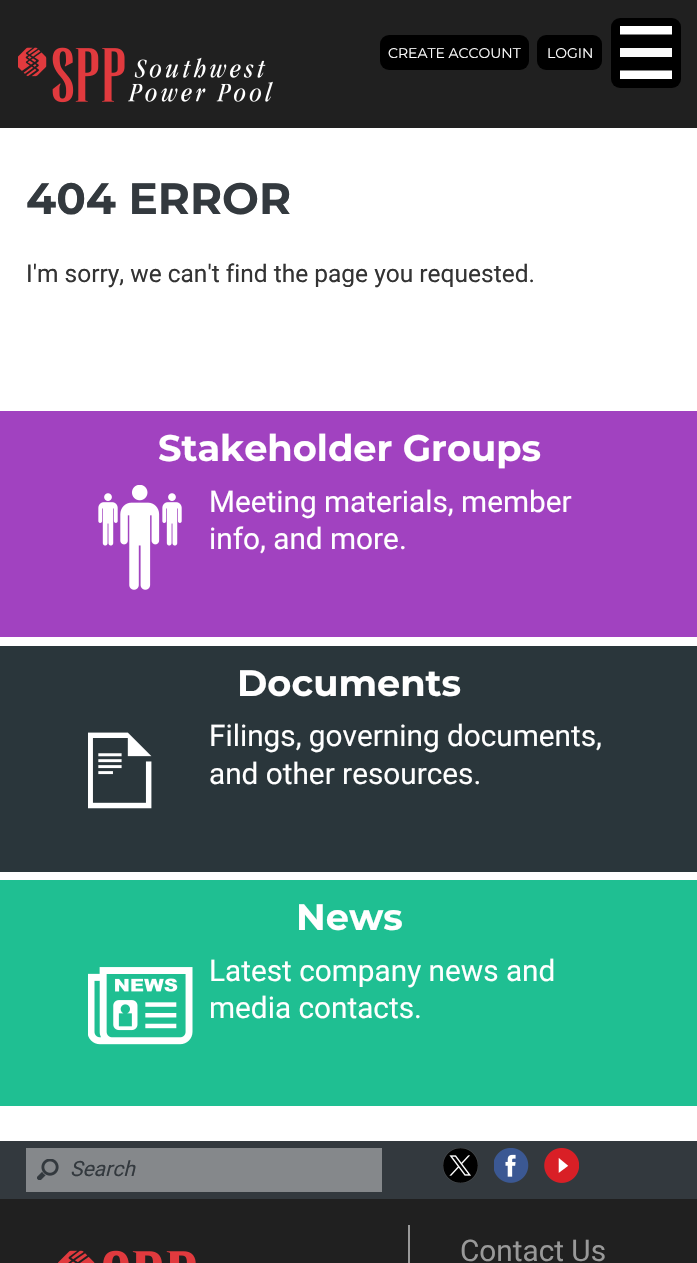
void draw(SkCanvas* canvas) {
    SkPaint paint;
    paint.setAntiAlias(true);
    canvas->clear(0xFFFFFFFF);
    paint.setColor(0xFF202020);
    canvas->drawRect(SkRect::MakeXYWH(0, 0, 697, 128), paint);
    canvas->drawImageRect(SkImages::DeferredFromEncodedData(SkData::MakeFromFileName("img1.png")), SkRect::MakeXYWH(18, 47, 255, 56), SkSamplingOptions());
    paint.setColor(0xFF000000);
    canvas->drawRoundRect(SkRect::MakeXYWH(380, 35, 149, 35), 9, 9, paint);
    SkFont font1(fontMgr->matchFamilyStyle("Montserrat", SkFontStyle::Normal()), 14);
    font1.setSubpixel(true);
    paint.setColor(0xFFFFFFFF);
    canvas->drawString("CREATE ACCOUNT", 388, 58, font1, paint);
    paint.setColor(0xFF000000);
    canvas->drawRoundRect(SkRect::MakeXYWH(537, 35, 65, 35), 9, 9, paint);
    paint.setColor(0xFFFFFFFF);
    canvas->drawString("LOGIN", 547, 58, font1, paint);
    paint.setColor(0xFF000000);
    canvas->drawRoundRect(SkRect::MakeXYWH(611, 18, 70, 70), 9, 9, paint);
    canvas->save();
    canvas->clipRect(SkRect::MakeXYWH(620, 26, 52, 53));
    paint.setStyle(SkPaint::kStroke_Style);
    paint.setStrokeWidth(8.8f);
    paint.setColor(0xFFFFFFFF);
    canvas->drawPath(SkPathBuilder().moveTo(619.5f, 30).lineTo(672, 30).detach(), paint);
    canvas->restore();
    paint.setStyle(SkPaint::kFill_Style);
    paint.setColor(0xFFF9F9F9);
    canvas->drawRect(SkRect::MakeXYWH(620, 48, 52, 9), paint);
    canvas->save();
    canvas->clipRect(SkRect::MakeXYWH(620, 26, 52, 53));
    paint.setStyle(SkPaint::kStroke_Style);
    paint.setColor(0xFFFFFFFF);
    canvas->drawPath(SkPathBuilder().moveTo(619.5f, 75).lineTo(672, 75).detach(), paint);
    canvas->restore();
    SkFont font2(fontMgr->matchFamilyStyle("Montserrat", SkFontStyle::Bold()), 43.75f);
    font2.setSubpixel(true);
    paint.setStyle(SkPaint::kFill_Style);
    paint.setColor(0xFF33393E);
    canvas->drawString("404 ERROR", 26, 214, font2, paint);
    SkFont font3(fontMgr->matchFamilyStyle("Roboto", SkFontStyle::Normal()), 24.5f);
    font3.setSubpixel(true);
    paint.setColor(0xFF333333);
    canvas->drawString("I'm sorry, we can't find the page you requested.", 26, 282, font3, paint);
    paint.setColor(0xFFA142C0);
    canvas->drawRect(SkRect::MakeXYWH(0, 411, 697, 226), paint);
    SkFont font4(fontMgr->matchFamilyStyle("Montserrat", SkFontStyle::Bold()), 36.75f);
    font4.setSubpixel(true);
    paint.setColor(0xFFFFFFFF);
    canvas->drawString("Stakeholder Groups", 158, 461, font4, paint);
    canvas->drawImageRect(SkImages::DeferredFromEncodedData(SkData::MakeFromFileName("img2.png")), SkRect::MakeXYWH(98, 485, 84, 105), SkSamplingOptions());
    SkFont font5(fontMgr->matchFamilyStyle("Roboto", SkFontStyle::Normal()), 29.75f);
    font5.setSubpixel(true);
    canvas->drawString("Meeting materials, member", 209, 512, font5, paint);
    canvas->drawString("info, and more.", 209, 549, font5, paint);
    paint.setColor(0xFF2A363B);
    canvas->drawRect(SkRect::MakeXYWH(0, 646, 697, 226), paint);
    paint.setColor(0xFFFFFFFF);
    canvas->drawString("Documents", 237, 696, font4, paint);
    canvas->drawImageRect(SkImages::DeferredFromEncodedData(SkData::MakeFromFileName("img3.png")), SkRect::MakeXYWH(88, 732, 64, 77), SkSamplingOptions());
    canvas->drawString("Filings, governing documents,", 209, 746, font5, paint);
    canvas->drawString("and other resources.", 209, 784, font5, paint);
    paint.setColor(0xFF1FBF92);
    canvas->drawRect(SkRect::MakeXYWH(0, 880, 697, 226), paint);
    paint.setColor(0xFFFFFFFF);
    canvas->drawString("News", 296, 930, font4, paint);
    canvas->drawImageRect(SkImages::DeferredFromEncodedData(SkData::MakeFromFileName("img4.png")), SkRect::MakeXYWH(88, 967, 105, 78), SkSamplingOptions());
    canvas->drawString("Latest company news and", 209, 981, font5, paint);
    canvas->drawString("media contacts.", 209, 1018, font5, paint);
    paint.setColor(0xFF33393E);
    canvas->drawRect(SkRect::MakeXYWH(0, 1141, 697, 58), paint);
    paint.setColor(0xFF85888B);
    canvas->drawRect(SkRect::MakeXYWH(26, 1148, 356, 44), paint);
    canvas->drawImageRect(SkImages::DeferredFromEncodedData(SkData::MakeFromFileName("img5.png")), SkRect::MakeXYWH(37, 1159, 22, 21), SkSamplingOptions());
    SkFont font6(fontMgr->matchFamilyStyle("Roboto", SkFontStyle::Italic()), 21);
    font6.setSubpixel(true);
    paint.setColor(0xFF33393E);
    canvas->drawString("Search", 70, 1176, font6, paint);
    canvas->drawImageRect(SkImages::DeferredFromEncodedData(SkData::MakeFromFileName("img6.png")), SkRect::MakeXYWH(443, 1148, 35, 35), SkSamplingOptions());
    canvas->drawImageRect(SkImages::DeferredFromEncodedData(SkData::MakeFromFileName("img7.png")), SkRect::MakeXYWH(494, 1148, 35, 35), SkSamplingOptions());
    canvas->drawImageRect(SkImages::DeferredFromEncodedData(SkData::MakeFromFileName("img8.png")), SkRect::MakeXYWH(544, 1148, 35, 35), SkSamplingOptions());
    paint.setColor(0xFF202020);
    canvas->drawRect(SkRect::MakeXYWH(0, 1199, 697, 64), paint);
    canvas->drawImageRect(SkImages::DeferredFromEncodedData(SkData::MakeFromFileName("img9.png")), SkRect::MakeXYWH(58, 1250, 138, 13), SkSamplingOptions());
    paint.setColor(0xFF999999);
    canvas->drawRect(SkRect::MakeXYWH(408, 1225, 2, 38), paint);
    canvas->drawString("Contact Us", 460, 1261, font5, paint);
}
